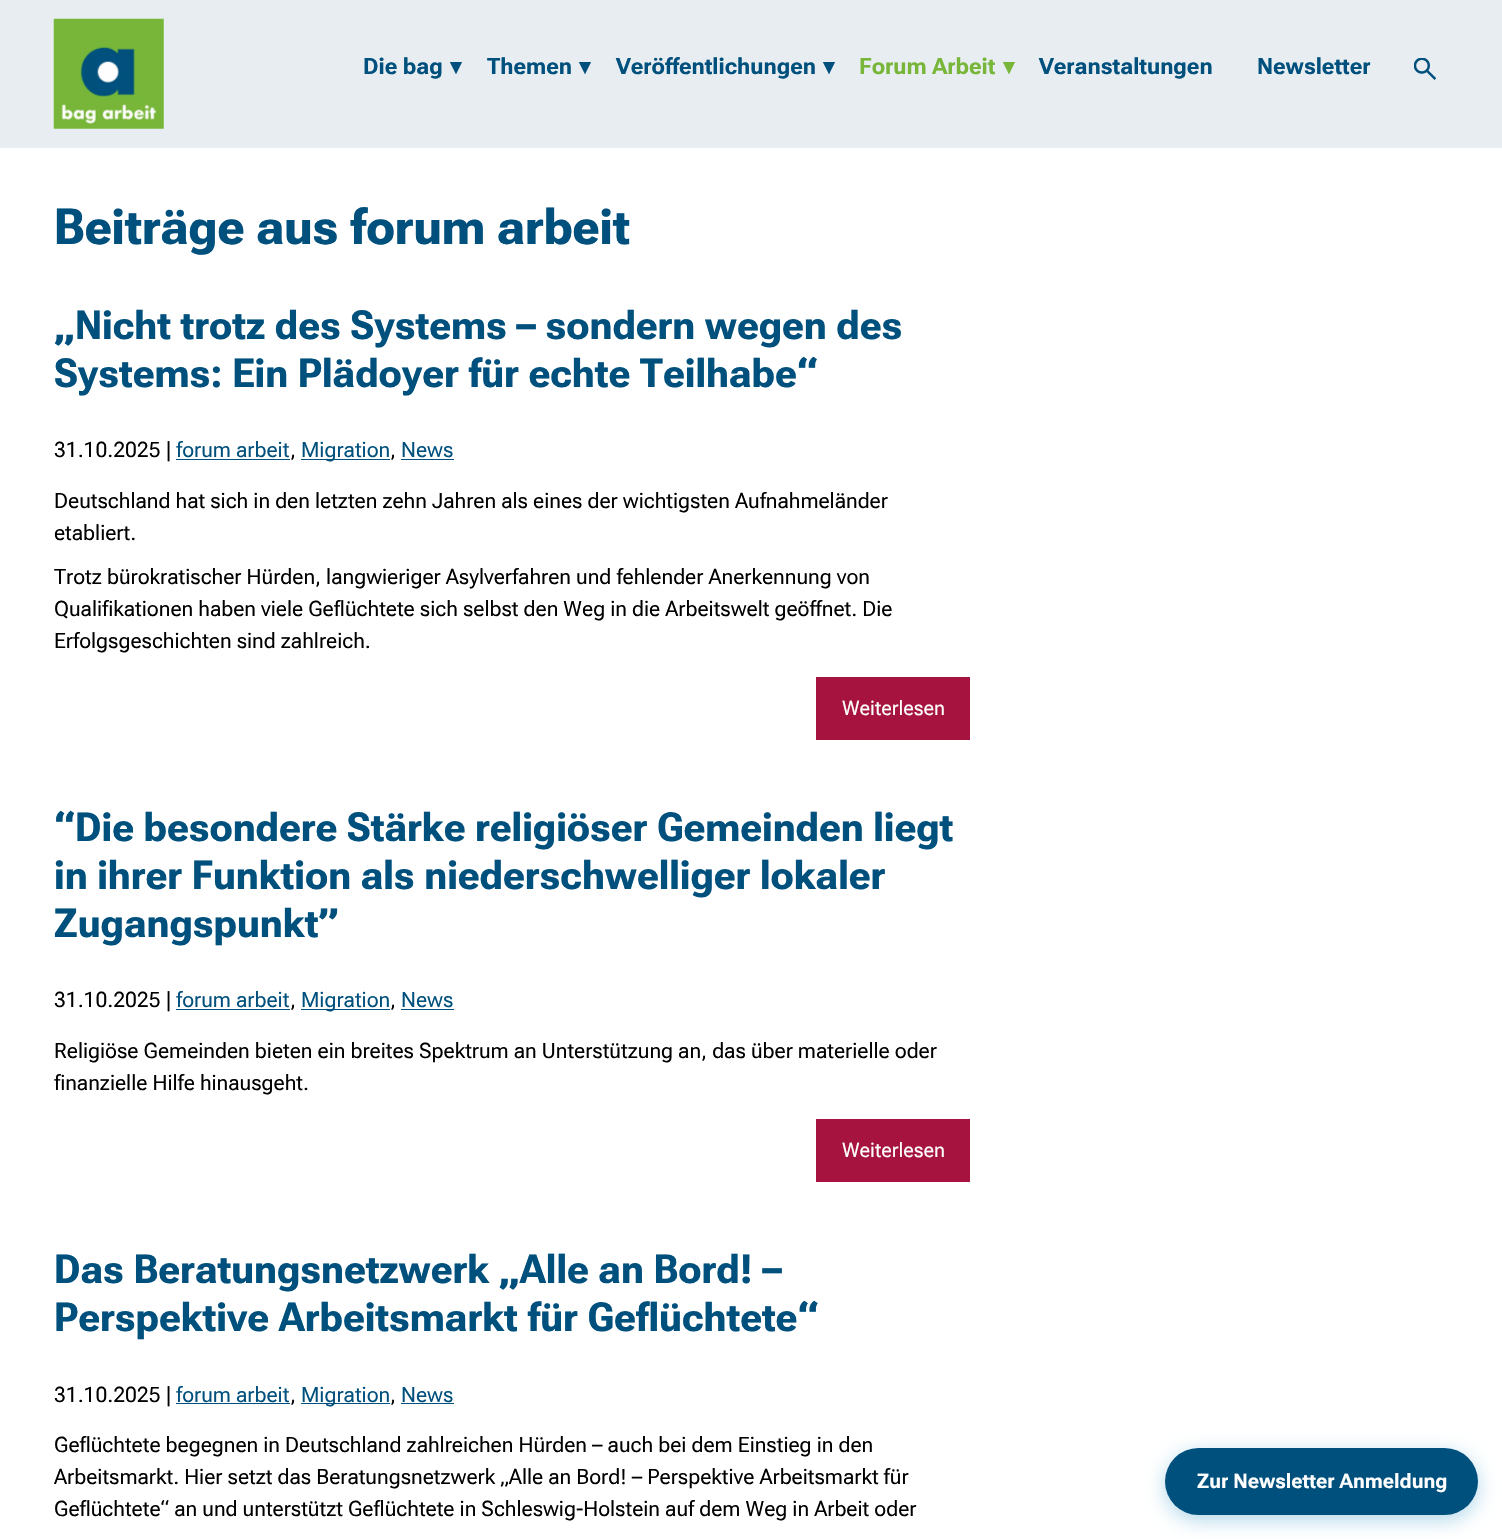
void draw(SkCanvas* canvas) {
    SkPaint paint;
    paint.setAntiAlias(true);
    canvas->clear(0xFFFFFFFF);
    paint.setColor(0xFFE8EDF1);
    canvas->drawRect(SkRect::MakeXYWH(0, 0, 1502, 148), paint);
    canvas->drawImageRect(SkImages::DeferredFromEncodedData(SkData::MakeFromFileName("img1.png")), SkRect::MakeXYWH(53, 18, 111, 111), SkSamplingOptions());
    SkFont font1(fontMgr->matchFamilyStyle("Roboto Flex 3", SkFontStyle::Bold()), 22.5f);
    font1.setSubpixel(true);
    paint.setColor(0xFF00507D);
    canvas->drawString("Die bag", 363, 74, font1, paint);
    SkFont font2(fontMgr->matchFamilyStyle("DejaVu Sans", SkFontStyle::Bold()), 22.5f);
    font2.setSubpixel(true);
    canvas->drawString("▾", 450, 74, font2, paint);
    canvas->drawString("Themen", 487, 74, font1, paint);
    canvas->drawString("▾", 579, 74, font2, paint);
    canvas->drawString("Veröffentlichungen", 616, 74, font1, paint);
    canvas->drawString("▾", 823, 74, font2, paint);
    paint.setColor(0xFF77B638);
    canvas->drawString("Forum Arbeit", 859, 74, font1, paint);
    canvas->drawString("▾", 1003, 74, font2, paint);
    paint.setColor(0xFF00507D);
    canvas->drawString("Veranstaltungen", 1039, 74, font1, paint);
    canvas->drawString("Newsletter", 1257, 74, font1, paint);
    canvas->drawImageRect(SkImages::DeferredFromEncodedData(SkData::MakeFromFileName("img2.png")), SkRect::MakeXYWH(1414, 58, 22, 22), SkSamplingOptions());
    SkFont font3(fontMgr->matchFamilyStyle("Roboto Flex", SkFontStyle::Bold()), 50);
    font3.setSubpixel(true);
    canvas->drawString("Beiträge aus forum arbeit", 54, 244, font3, paint);
    SkFont font4(fontMgr->matchFamilyStyle("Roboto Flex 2", SkFontStyle::Bold()), 40);
    font4.setSubpixel(true);
    canvas->drawString("„Nicht trotz des Systems – sondern wegen des", 54, 339, font4, paint);
    canvas->drawString("Systems: Ein Plädoyer für echte Teilhabe“", 54, 387, font4, paint);
    SkFont font5(fontMgr->matchFamilyStyle("Roboto Flex", SkFontStyle::Normal()), 21.25f);
    font5.setSubpixel(true);
    paint.setColor(0xFF000000);
    canvas->drawString("31.10.2025 |", 54, 457, font5, paint);
    paint.setColor(0xFF00507D);
    canvas->drawString("forum arbeit", 176, 457, font5, paint);
    paint.setColor(0xFF000000);
    canvas->drawString(",", 290, 457, font5, paint);
    paint.setColor(0xFF00507D);
    canvas->drawRect(SkRect::MakeXYWH(176, 459, 114, 1), paint);
    canvas->drawRect(SkRect::MakeXYWH(301, 459, 89, 1), paint);
    canvas->drawString("Migration", 301, 457, font5, paint);
    paint.setColor(0xFF000000);
    canvas->drawString(",", 390, 457, font5, paint);
    paint.setColor(0xFF00507D);
    canvas->drawRect(SkRect::MakeXYWH(401, 459, 53, 1), paint);
    canvas->drawString("News", 401, 457, font5, paint);
    paint.setColor(0xFF000000);
    canvas->drawString("Deutschland hat sich in den letzten zehn Jahren als eines der wichtigsten Aufnahmeländer", 54, 508, font5, paint);
    canvas->drawString("etabliert.", 54, 540, font5, paint);
    canvas->drawString("Trotz bürokratischer Hürden, langwieriger Asylverfahren und fehlender Anerkennung von", 54, 584, font5, paint);
    canvas->drawString("Qualifikationen haben viele Geflüchtete sich selbst den Weg in die Arbeitswelt geöffnet. Die", 54, 616, font5, paint);
    canvas->drawString("Erfolgsgeschichten sind zahlreich.", 54, 648, font5, paint);
    paint.setColor(0xFFA6133E);
    canvas->drawRect(SkRect::MakeXYWH(816, 677, 154, 63), paint);
    SkFont font6(fontMgr->matchFamilyStyle("Roboto Flex 2", SkFontStyle::Normal()), 20);
    font6.setSubpixel(true);
    paint.setColor(0xFFFFFFFF);
    canvas->drawString("Weiterlesen", 842, 715, font6, paint);
    paint.setColor(0xFF00507D);
    canvas->drawString("“Die besondere Stärke religiöser Gemeinden liegt", 54, 841, font4, paint);
    canvas->drawString("in ihrer Funktion als niederschwelliger lokaler", 54, 889, font4, paint);
    canvas->drawString("Zugangspunkt”", 54, 937, font4, paint);
    paint.setColor(0xFF000000);
    canvas->drawString("31.10.2025 |", 54, 1007, font5, paint);
    paint.setColor(0xFF00507D);
    canvas->drawString("forum arbeit", 176, 1007, font5, paint);
    paint.setColor(0xFF000000);
    canvas->drawString(",", 290, 1007, font5, paint);
    paint.setColor(0xFF00507D);
    canvas->drawRect(SkRect::MakeXYWH(176, 1009, 114, 1), paint);
    canvas->drawRect(SkRect::MakeXYWH(301, 1009, 89, 1), paint);
    canvas->drawString("Migration", 301, 1007, font5, paint);
    paint.setColor(0xFF000000);
    canvas->drawString(",", 390, 1007, font5, paint);
    paint.setColor(0xFF00507D);
    canvas->drawRect(SkRect::MakeXYWH(401, 1009, 53, 1), paint);
    canvas->drawString("News", 401, 1007, font5, paint);
    paint.setColor(0xFF000000);
    canvas->drawString("Religiöse Gemeinden bieten ein breites Spektrum an Unterstützung an, das über materielle oder", 54, 1058, font5, paint);
    canvas->drawString("finanzielle Hilfe hinausgeht.", 54, 1090, font5, paint);
    paint.setColor(0xFFA6133E);
    canvas->drawRect(SkRect::MakeXYWH(816, 1119, 154, 63), paint);
    paint.setColor(0xFFFFFFFF);
    canvas->drawString("Weiterlesen", 842, 1157, font6, paint);
    paint.setColor(0xFF00507D);
    canvas->drawString("Das Beratungsnetzwerk „Alle an Bord! –", 54, 1283, font4, paint);
    canvas->drawString("Perspektive Arbeitsmarkt für Geflüchtete“", 54, 1331, font4, paint);
    paint.setColor(0xFF000000);
    canvas->drawString("31.10.2025 |", 54, 1402, font5, paint);
    paint.setColor(0xFF00507D);
    canvas->drawString("forum arbeit", 176, 1402, font5, paint);
    paint.setColor(0xFF000000);
    canvas->drawString(",", 290, 1402, font5, paint);
    paint.setColor(0xFF00507D);
    canvas->drawRect(SkRect::MakeXYWH(176, 1403, 114, 1), paint);
    canvas->drawRect(SkRect::MakeXYWH(301, 1403, 89, 1), paint);
    canvas->drawString("Migration", 301, 1402, font5, paint);
    paint.setColor(0xFF000000);
    canvas->drawString(",", 390, 1402, font5, paint);
    paint.setColor(0xFF00507D);
    canvas->drawRect(SkRect::MakeXYWH(401, 1403, 53, 1), paint);
    canvas->drawString("News", 401, 1402, font5, paint);
    paint.setColor(0xFF000000);
    canvas->drawString("Geflüchtete begegnen in Deutschland zahlreichen Hürden – auch bei dem Einstieg in den", 54, 1452, font5, paint);
    canvas->drawString("Arbeitsmarkt. Hier setzt das Beratungsnetzwerk „Alle an Bord! – Perspektive Arbeitsmarkt für", 54, 1484, font5, paint);
    canvas->drawString("Geflüchtete“ an und unterstützt Geflüchtete in Schleswig-Holstein auf dem Weg in Arbeit oder", 54, 1516, font5, paint);
    paint.setColor(0x4D007CBA);
    paint.setMaskFilter(SkMaskFilter::MakeBlur(kNormal_SkBlurStyle, 9.5f));
    canvas->drawRoundRect(SkRect::MakeXYWH(1165, 1453, 313, 67), 33.5f, 33.5f, paint);
    paint.setMaskFilter(nullptr);
    paint.setColor(0xFF00507D);
    canvas->drawRoundRect(SkRect::MakeXYWH(1165, 1448, 313, 67), 33.5f, 33.5f, paint);
    SkFont font7(fontMgr->matchFamilyStyle("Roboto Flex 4", SkFontStyle::Bold()), 20);
    font7.setSubpixel(true);
    paint.setColor(0xFFFFFFFF);
    canvas->drawString("Zur Newsletter Anmeldung", 1197, 1488, font7, paint);
}
